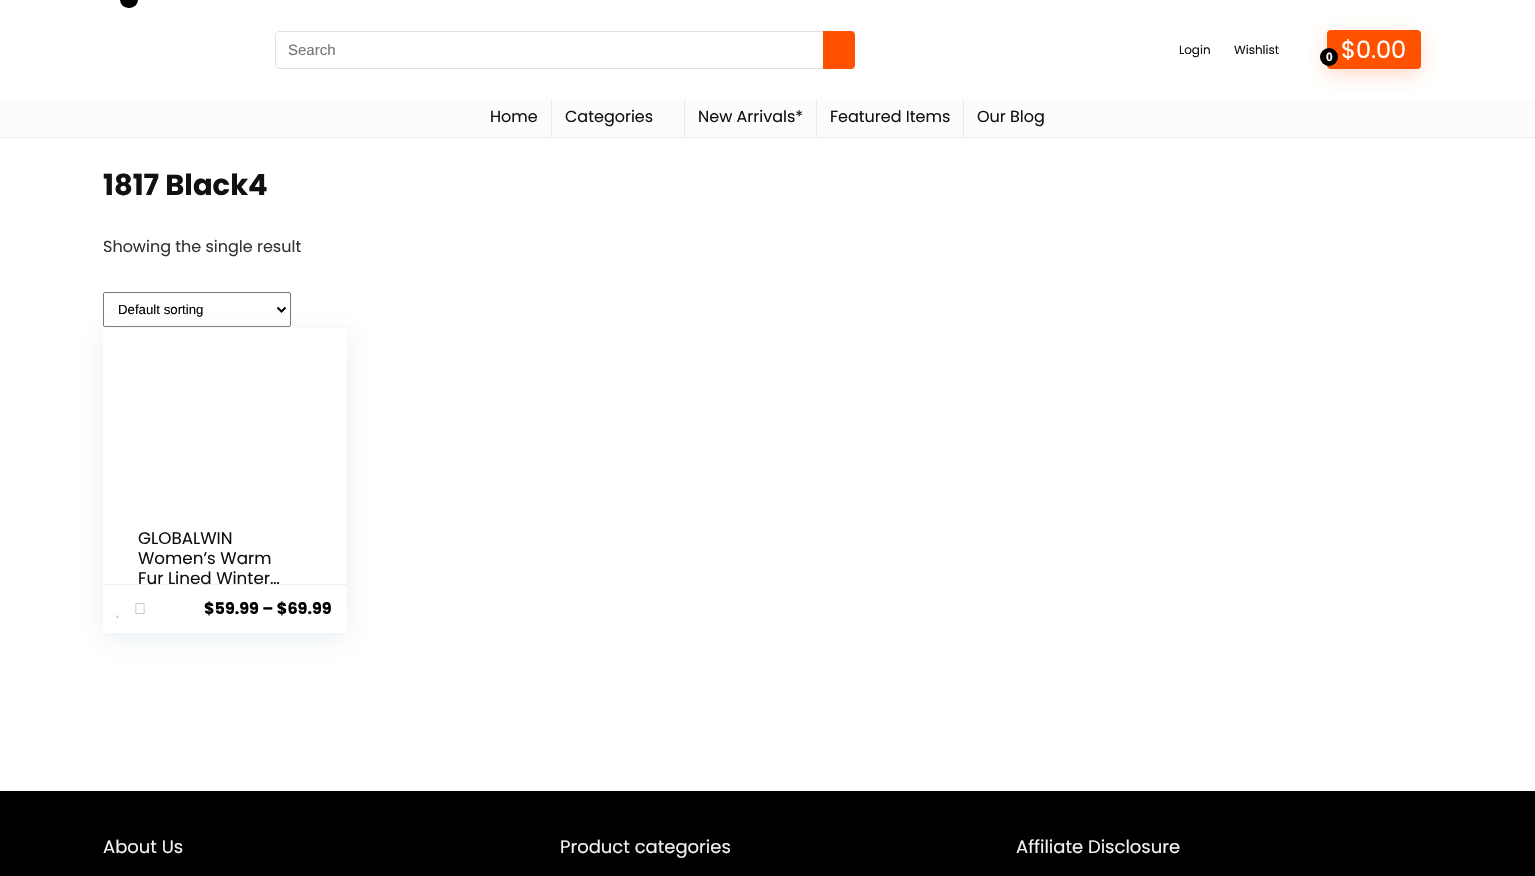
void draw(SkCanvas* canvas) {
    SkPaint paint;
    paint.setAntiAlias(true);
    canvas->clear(0xFFFFFFFF);
    paint.setStyle(SkPaint::kStroke_Style);
    paint.setStrokeWidth(1);
    paint.setColor(0xFFE1E1E1);
    canvas->drawPath(SkPathBuilder().moveTo(279, 31.5f).lineTo(854.5f, 31.5f).lineTo(854.5f, 68.5f).lineTo(279, 68.5f).cubicTo(277, 68.5f, 275.5f, 67, 275.5f, 65).lineTo(275.5f, 35).cubicTo(275.5f, 33, 277, 31.5f, 279, 31.5f).close().detach(), paint);
    SkFont font1(fontMgr->matchFamilyStyle("Liberation Sans", SkFontStyle::Normal()), 15);
    font1.setSubpixel(true);
    paint.setStyle(SkPaint::kFill_Style);
    paint.setColor(0xFF757575);
    canvas->drawString("Search", 288, 55, font1, paint);
    paint.setColor(0xFFFF5100);
    canvas->drawPath(SkPathBuilder().moveTo(823, 31).lineTo(851, 31).cubicTo(853, 31, 855, 33, 855, 35).lineTo(855, 65).cubicTo(855, 67, 853, 69, 851, 69).lineTo(823, 69).close().detach(), paint);
    SkFont font2(fontMgr->matchFamilyStyle("Poppins", SkFontStyle::Normal()), 12);
    font2.setSubpixel(true);
    paint.setColor(0xFF111111);
    canvas->drawString("Login", 1179, 54, font2, paint);
    canvas->drawString("Wishlist", 1234, 54, font2, paint);
    paint.setColor(0xFFFCFCFC);
    canvas->drawRect(SkRect::MakeXYWH(0, 99, 1535, 38), paint);
    paint.setColor(0x33FF5100);
    paint.setMaskFilter(SkMaskFilter::MakeBlur(kNormal_SkBlurStyle, 9.5f));
    canvas->drawRoundRect(SkRect::MakeXYWH(1326, 36, 94, 39), 4, 4, paint);
    paint.setMaskFilter(nullptr);
    paint.setColor(0xFFFF5100);
    canvas->drawRoundRect(SkRect::MakeXYWH(1327, 30, 94, 39), 4, 4, paint);
    paint.setColor(0xFF000000);
    canvas->drawRoundRect(SkRect::MakeXYWH(120, -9, 18, 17), 9, 9, paint);
    SkFont font3(fontMgr->matchFamilyStyle("Poppins", SkFontStyle::Normal()), 24);
    font3.setSubpixel(true);
    paint.setColor(0xFFFFFFFF);
    canvas->drawString("$0.00", 1341, 58, font3, paint);
    paint.setColor(0xFF000000);
    canvas->drawCircle(1329, 57, 9, paint);
    SkFont font4(fontMgr->matchFamilyStyle("Liberation Sans", SkFontStyle::Bold()), 12);
    font4.setSubpixel(true);
    paint.setColor(0xFFFFFFFF);
    canvas->drawString("0", 1326, 61, font4, paint);
    paint.setColor(0xFFEEEEEE);
    canvas->drawRect(SkRect::MakeXYWH(0, 137, 1535, 1), paint);
    paint.setColor(0xFFE8E8E8);
    canvas->drawRect(SkRect::MakeXYWH(551, 99, 1, 38), paint);
    SkFont font5(fontMgr->matchFamilyStyle("Poppins", SkFontStyle::Normal()), 16);
    font5.setSubpixel(true);
    paint.setColor(0xFF111111);
    canvas->drawString("Home", 490, 122, font5, paint);
    paint.setColor(0xFFE8E8E8);
    canvas->drawRect(SkRect::MakeXYWH(684, 99, 1, 38), paint);
    paint.setColor(0xFF111111);
    canvas->drawString("Categories", 565, 122, font5, paint);
    paint.setColor(0xFFE8E8E8);
    canvas->drawRect(SkRect::MakeXYWH(816, 99, 1, 38), paint);
    paint.setColor(0xFF111111);
    canvas->drawString("New Arrivals*", 698, 122, font5, paint);
    paint.setColor(0xFFE8E8E8);
    canvas->drawRect(SkRect::MakeXYWH(963, 99, 1, 38), paint);
    paint.setColor(0xFF111111);
    canvas->drawString("Featured Items", 830, 122, font5, paint);
    canvas->drawString("Our Blog", 977, 122, font5, paint);
    SkFont font6(fontMgr->matchFamilyStyle("Poppins", SkFontStyle::Bold()), 29);
    font6.setSubpixel(true);
    canvas->drawString("1817 Black4", 103, 195, font6, paint);
    paint.setColor(0xFF333333);
    canvas->drawString("Showing the single result", 103, 252, font5, paint);
    paint.setStyle(SkPaint::kStroke_Style);
    paint.setColor(0xFF767676);
    canvas->drawRoundRect(SkRect::MakeXYWH(103.5f, 292.5f, 187, 34), 1.5f, 1.5f, paint);
    paint.setStrokeWidth(2);
    paint.setColor(0xFF000000);
    canvas->drawPath(SkPathBuilder().moveTo(277.5f, 307.5f).lineTo(281.5f, 311.5f).lineTo(285.5f, 307.5f).detach(), paint);
    SkFont font7(fontMgr->matchFamilyStyle("Liberation Sans", SkFontStyle::Normal()), 13.25f);
    font7.setSubpixel(true);
    paint.setStyle(SkPaint::kFill_Style);
    canvas->drawString("Default sorting", 118, 314, font7, paint);
    canvas->save();
    canvas->clipPath(SkPathBuilder(SkPathFillType::kEvenOdd).moveTo(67, 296).lineTo(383, 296).lineTo(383, 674).lineTo(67, 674).close().moveTo(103, 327).lineTo(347, 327).lineTo(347, 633).lineTo(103, 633).close().detach(), true);
    paint.setColor(0x59BCCFDB);
    paint.setMaskFilter(SkMaskFilter::MakeBlur(kNormal_SkBlurStyle, 11.5f));
    canvas->drawRect(SkRect::MakeXYWH(103, 332, 244, 306), paint);
    paint.setMaskFilter(nullptr);
    canvas->restore();
    paint.setColor(0xFFF8F8F8);
    canvas->drawRect(SkRect::MakeXYWH(103, 327, 244, 1), paint);
    SkFont font8(fontMgr->matchFamilyStyle("Poppins", SkFontStyle::Normal()), 16.75f);
    font8.setSubpixel(true);
    paint.setColor(0xFF111111);
    canvas->drawString("GLOBALWIN", 138, 544, font8, paint);
    canvas->drawString("Women’s Warm", 138, 564, font8, paint);
    canvas->drawString("Fur Lined Winter…", 138, 584, font8, paint);
    paint.setColor(0x4DCECECE);
    canvas->drawRect(SkRect::MakeXYWH(103, 584, 244, 1), paint);
    canvas->drawImageRect(SkImages::DeferredFromEncodedData(SkData::MakeFromFileName("img1.png")), SkRect::MakeXYWH(135, 603, 10, 11), SkSamplingOptions());
    canvas->drawImageRect(SkImages::DeferredFromEncodedData(SkData::MakeFromFileName("img2.png")), SkRect::MakeXYWH(116, 615, 3, 4), SkSamplingOptions());
    SkFont font9(fontMgr->matchFamilyStyle("Poppins", SkFontStyle::Bold()), 16);
    font9.setSubpixel(true);
    paint.setColor(0xFF000000);
    canvas->drawString("$59.99 – $69.99", 204, 614, font9, paint);
    canvas->drawRect(SkRect::MakeXYWH(0, 791, 1535, 85), paint);
    SkFont font10(fontMgr->matchFamilyStyle("Poppins", SkFontStyle::Normal()), 18);
    font10.setSubpixel(true);
    paint.setColor(0xFFF1F1F1);
    canvas->drawString("About Us", 103, 853, font10, paint);
    canvas->drawString("Product categories", 560, 853, font10, paint);
    canvas->drawString("Affiliate Disclosure", 1016, 853, font10, paint);
}
